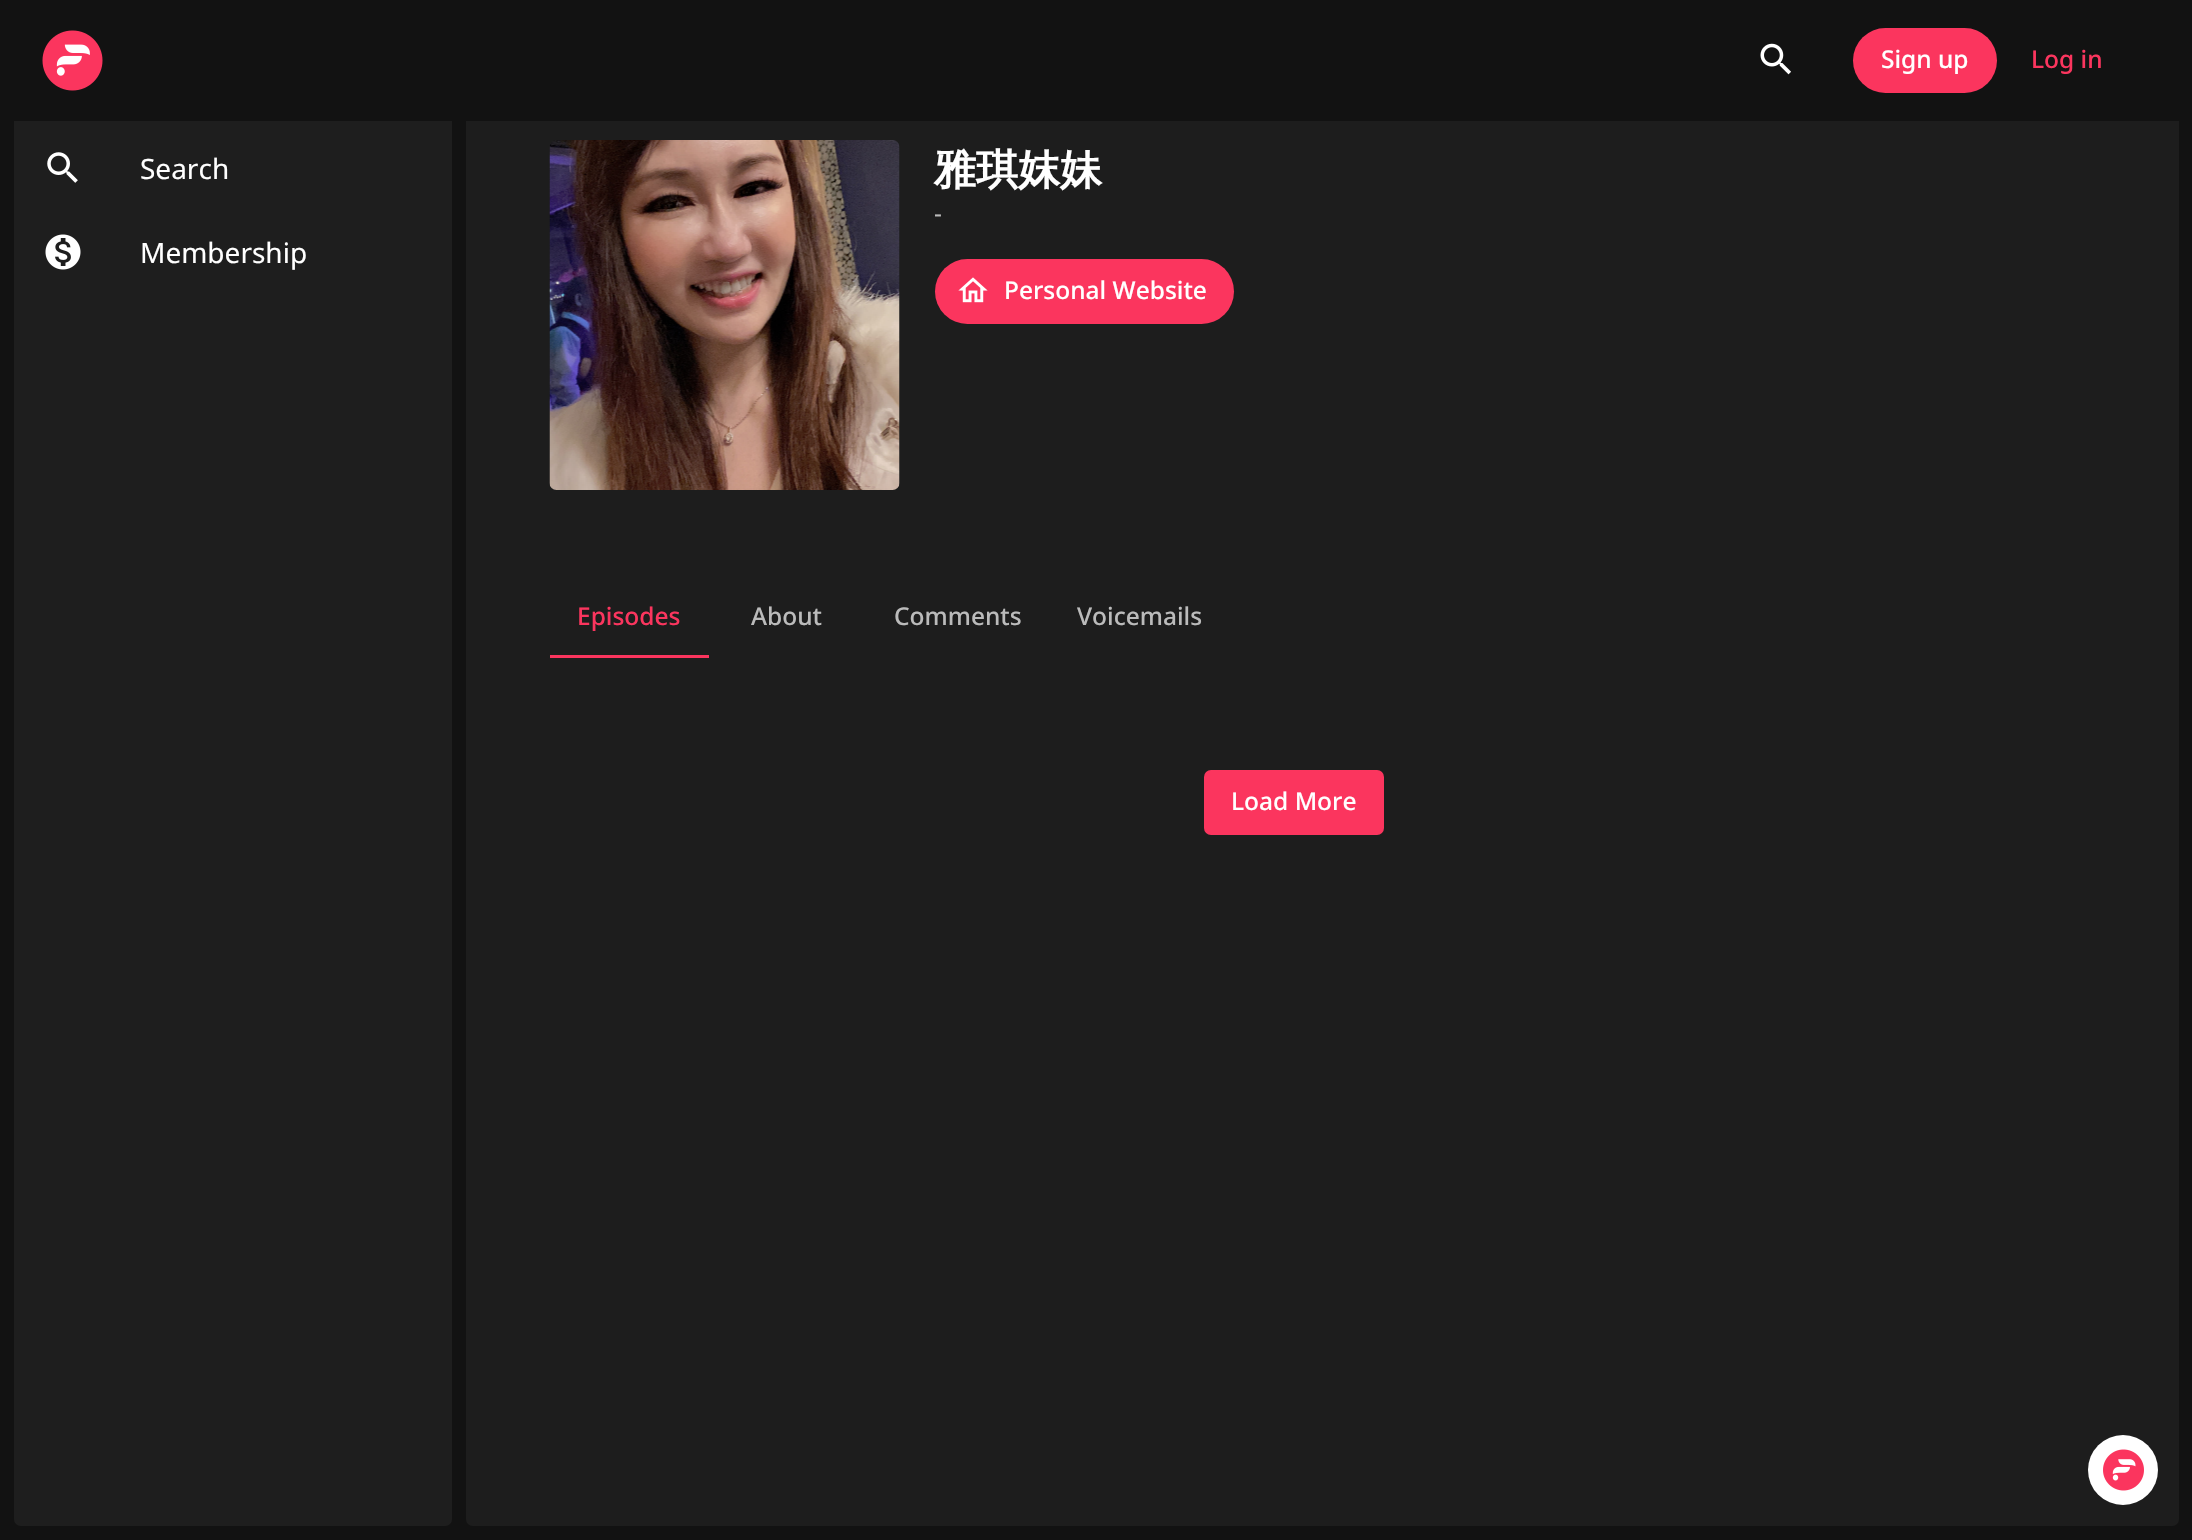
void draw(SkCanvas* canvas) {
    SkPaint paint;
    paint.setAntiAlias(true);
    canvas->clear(0xFF121212);
    paint.setColor(0xFF1E1E1E);
    canvas->drawRoundRect(SkRect::MakeXYWH(14, 112, 438, 1414), 7, 7, paint);
    paint.setColor(0xFF1D1D1D);
    canvas->drawRoundRect(SkRect::MakeXYWH(466, 112, 1713, 1414), 7, 7, paint);
    paint.setColor(0xFF121212);
    canvas->drawRect(SkRect::MakeXYWH(14, 112, 2165, 9), paint);
    canvas->drawImageRect(SkImages::DeferredFromEncodedData(SkData::MakeFromFileName("img1.png")), SkRect::MakeXYWH(42, 30, 61, 61), SkSamplingOptions());
    canvas->drawImageRect(SkImages::DeferredFromEncodedData(SkData::MakeFromFileName("img2.png")), SkRect::MakeXYWH(1760, 43, 31, 32), SkSamplingOptions());
    paint.setColor(0xFFFB355E);
    canvas->drawRoundRect(SkRect::MakeXYWH(1853, 28, 144, 65), 32.5f, 32.5f, paint);
    SkFont font1(fontMgr->matchFamilyStyle("Noto Sans", SkFontStyle(500, SkFontStyle::kNormal_Width, SkFontStyle::kUpright_Slant)), 24.5f);
    font1.setSubpixel(true);
    paint.setColor(0xFFFFFFFF);
    canvas->drawString("Sign up", 1881, 68, font1, paint);
    paint.setColor(0xFFFB355E);
    canvas->drawString("Log in", 2031, 68, font1, paint);
    canvas->drawImageRect(SkImages::DeferredFromEncodedData(SkData::MakeFromFileName("img3.png")), SkRect::MakeXYWH(47, 152, 31, 31), SkSamplingOptions());
    SkFont font2(fontMgr->matchFamilyStyle("Noto Sans", SkFontStyle::Normal()), 28);
    font2.setSubpixel(true);
    paint.setColor(0xFFFFFFFF);
    canvas->drawString("Search", 140, 179, font2, paint);
    canvas->drawImageRect(SkImages::DeferredFromEncodedData(SkData::MakeFromFileName("img4.png")), SkRect::MakeXYWH(45, 234, 36, 36), SkSamplingOptions());
    canvas->drawString("Membership", 140, 263, font2, paint);
    canvas->drawImageRect(SkImages::DeferredFromEncodedData(SkData::MakeFromFileName("img5.png")), SkRect::MakeXYWH(549, 140, 351, 350), SkSamplingOptions());
    SkFont font3(fontMgr->matchFamilyStyle("WenQuanYi Zen Hei", SkFontStyle::Bold()), 42);
    font3.setSubpixel(true);
    canvas->drawString("雅琪妺妹", 934, 184, font3, paint);
    SkFont font4(fontMgr->matchFamilyStyle("Noto Sans", SkFontStyle::Normal()), 24.5f);
    font4.setSubpixel(true);
    paint.setColor(0xFFBBBBBB);
    canvas->drawString("-", 934, 222, font4, paint);
    paint.setColor(0xFFFB355E);
    canvas->drawRoundRect(SkRect::MakeXYWH(935, 259, 299, 65), 32.5f, 32.5f, paint);
    canvas->drawImageRect(SkImages::DeferredFromEncodedData(SkData::MakeFromFileName("img6.png")), SkRect::MakeXYWH(958, 277, 30, 26), SkSamplingOptions());
    paint.setColor(0xFFFFFFFF);
    canvas->drawString("Personal Website", 1004, 299, font1, paint);
    paint.setColor(0xFFFB355E);
    canvas->drawString("Episodes", 577, 625, font1, paint);
    paint.setColor(0xFFBBBBBB);
    canvas->drawString("About", 751, 625, font1, paint);
    canvas->drawString("Comments", 894, 625, font1, paint);
    canvas->drawString("Voicemails", 1077, 625, font1, paint);
    paint.setColor(0xFFFB355E);
    canvas->drawRect(SkRect::MakeXYWH(550, 655, 159, 3), paint);
    canvas->drawRoundRect(SkRect::MakeXYWH(1204, 770, 180, 65), 7, 7, paint);
    paint.setColor(0xFFFFFFFF);
    canvas->drawString("Load More", 1231, 810, font1, paint);
    canvas->drawCircle(2123, 1470, 35, paint);
    canvas->drawImageRect(SkImages::DeferredFromEncodedData(SkData::MakeFromFileName("img7.png")), SkRect::MakeXYWH(2103, 1449, 41, 42), SkSamplingOptions());
}
